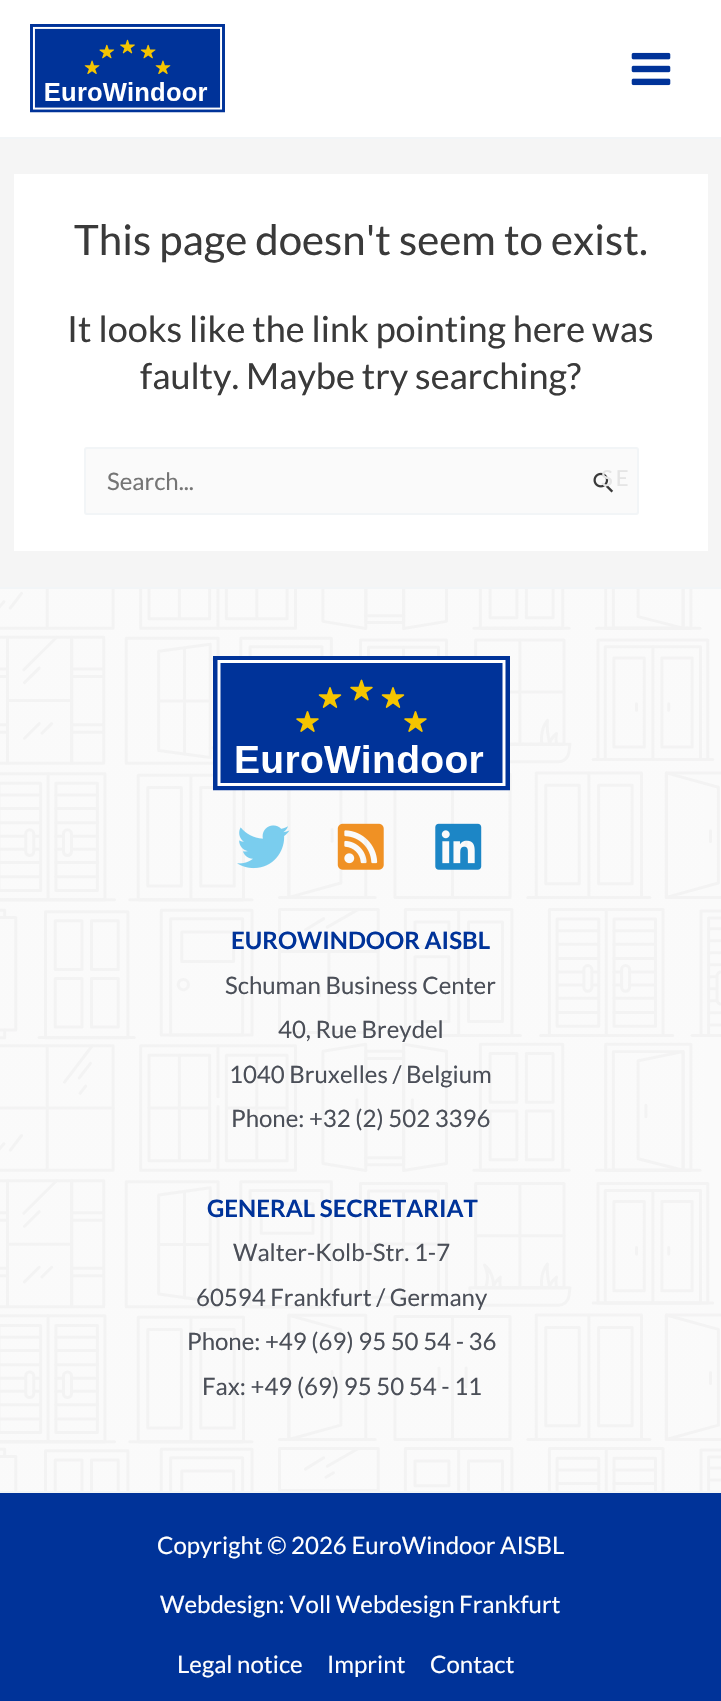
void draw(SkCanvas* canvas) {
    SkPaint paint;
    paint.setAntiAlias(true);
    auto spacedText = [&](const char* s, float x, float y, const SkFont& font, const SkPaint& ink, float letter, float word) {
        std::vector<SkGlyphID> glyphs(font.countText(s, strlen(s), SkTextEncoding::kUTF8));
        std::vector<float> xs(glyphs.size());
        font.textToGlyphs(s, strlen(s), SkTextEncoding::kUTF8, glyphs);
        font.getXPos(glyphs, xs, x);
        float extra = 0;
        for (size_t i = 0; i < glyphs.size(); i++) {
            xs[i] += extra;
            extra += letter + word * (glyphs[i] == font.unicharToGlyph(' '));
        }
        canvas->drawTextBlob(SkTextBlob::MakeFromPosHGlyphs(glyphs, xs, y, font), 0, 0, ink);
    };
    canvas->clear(0xFFF5F5F5);
    paint.setColor(0xFFFFFFFF);
    canvas->drawRect(SkRect::MakeXYWH(0, 0, 721, 137), paint);
    paint.setColor(0xFFF2F5F7);
    canvas->drawRect(SkRect::MakeXYWH(0, 137, 721, 2), paint);
    canvas->drawImageRect(SkImages::DeferredFromEncodedData(SkData::MakeFromFileName("img1.png")), SkRect::MakeXYWH(30, 24, 195, 89), SkSamplingOptions());
    canvas->drawImageRect(SkImages::DeferredFromEncodedData(SkData::MakeFromFileName("img2.png")), SkRect::MakeXYWH(631, 52, 40, 34), SkSamplingOptions());
    paint.setColor(0xFFFFFFFF);
    canvas->drawRect(SkRect::MakeXYWH(14, 174, 694, 377), paint);
    SkFont font1(fontMgr->matchFamilyStyle("Lato", SkFontStyle::Normal()), 42);
    font1.setSubpixel(true);
    paint.setColor(0xFF3A3A3A);
    canvas->drawString("This page doesn't seem to exist.", 74, 255, font1, paint);
    SkFont font2(fontMgr->matchFamilyStyle("Lato", SkFontStyle::Normal()), 36);
    font2.setSubpixel(true);
    canvas->drawString("It looks like the link pointing here was", 67, 342, font2, paint);
    canvas->drawString("faulty. Maybe try searching?", 140, 389, font2, paint);
    paint.setColor(0xFFFAFAFA);
    canvas->drawRoundRect(SkRect::MakeXYWH(85, 448, 553, 66), 2, 2, paint);
    paint.setStyle(SkPaint::kStroke_Style);
    paint.setStrokeWidth(2);
    paint.setColor(0xFFF2F5F7);
    canvas->drawRoundRect(SkRect::MakeXYWH(85, 448, 553, 66), 2, 2, paint);
    SkFont font3(fontMgr->matchFamilyStyle("Lato", SkFontStyle::Normal()), 24);
    font3.setSubpixel(true);
    paint.setStyle(SkPaint::kFill_Style);
    paint.setColor(0xFF757575);
    canvas->drawString("Search...", 107, 490, font3, paint);
    canvas->drawImageRect(SkImages::DeferredFromEncodedData(SkData::MakeFromFileName("img3.png")), SkRect::MakeXYWH(593, 472, 21, 21), SkSamplingOptions());
    SkFont font4(fontMgr->matchFamilyStyle("Lato", SkFontStyle::Normal()), 22);
    font4.setSubpixel(true);
    paint.setColor(0xFFE5E5E5);
    spacedText("SE", 601, 486, font4, paint, 3, 0);
    canvas->drawImageRect(SkImages::DeferredFromEncodedData(SkData::MakeFromFileName("img4.png")), SkRect::MakeXYWH(0, 589, 721, 902), SkSamplingOptions());
    paint.setColor(0xFFF2F5F7);
    canvas->drawRect(SkRect::MakeXYWH(0, 587, 721, 2), paint);
    canvas->drawImageRect(SkImages::DeferredFromEncodedData(SkData::MakeFromFileName("img5.png")), SkRect::MakeXYWH(213, 656, 297, 135), SkSamplingOptions());
    canvas->drawImageRect(SkImages::DeferredFromEncodedData(SkData::MakeFromFileName("img6.png")), SkRect::MakeXYWH(237, 825, 53, 44), SkSamplingOptions());
    canvas->drawImageRect(SkImages::DeferredFromEncodedData(SkData::MakeFromFileName("img7.png")), SkRect::MakeXYWH(337, 823, 47, 47), SkSamplingOptions());
    canvas->drawImageRect(SkImages::DeferredFromEncodedData(SkData::MakeFromFileName("img8.png")), SkRect::MakeXYWH(435, 823, 47, 47), SkSamplingOptions());
    SkFont font5(fontMgr->matchFamilyStyle("Lato", SkFontStyle::Bold()), 24);
    font5.setSubpixel(true);
    paint.setColor(0xFF003399);
    canvas->drawString("EUROWINDOOR AISBL", 231, 949, font5, paint);
    paint.setColor(0xFF4B4F58);
    canvas->drawString("Schuman Business Center", 225, 994, font3, paint);
    canvas->drawString("40, Rue Breydel", 278, 1038, font3, paint);
    canvas->drawString("1040 Bruxelles / Belgium", 229, 1083, font3, paint);
    canvas->drawString("Phone: +32 (2) 502 3396", 231, 1127, font3, paint);
    paint.setColor(0xFF003399);
    canvas->drawString("GENERAL SECRETARIAT", 207, 1217, font5, paint);
    paint.setColor(0xFF4B4F58);
    canvas->drawString("Walter-Kolb-Str. 1-7", 233, 1261, font3, paint);
    canvas->drawString("60594 Frankfurt / Germany", 196, 1306, font3, paint);
    canvas->drawString("Phone: +49 (69) 95 50 54 - 36", 187, 1350, font3, paint);
    canvas->drawString("Fax: +49 (69) 95 50 54 - 11", 202, 1395, font3, paint);
    paint.setColor(0xFF003399);
    canvas->drawRect(SkRect::MakeXYWH(0, 1493, 721, 208), paint);
    paint.setColor(0xFFF2F5F7);
    canvas->drawRect(SkRect::MakeXYWH(0, 1491, 721, 2), paint);
    paint.setColor(0xFFFFFFFF);
    canvas->drawString("Copyright © 2026 EuroWindoor AISBL", 157, 1554, font3, paint);
    canvas->drawString("Webdesign: Voll Webdesign Frankfurt", 160, 1613, font3, paint);
    canvas->drawString("Legal notice", 177, 1673, font3, paint);
    canvas->drawString("Imprint", 327, 1673, font3, paint);
    canvas->drawString("Contact", 430, 1673, font3, paint);
}
